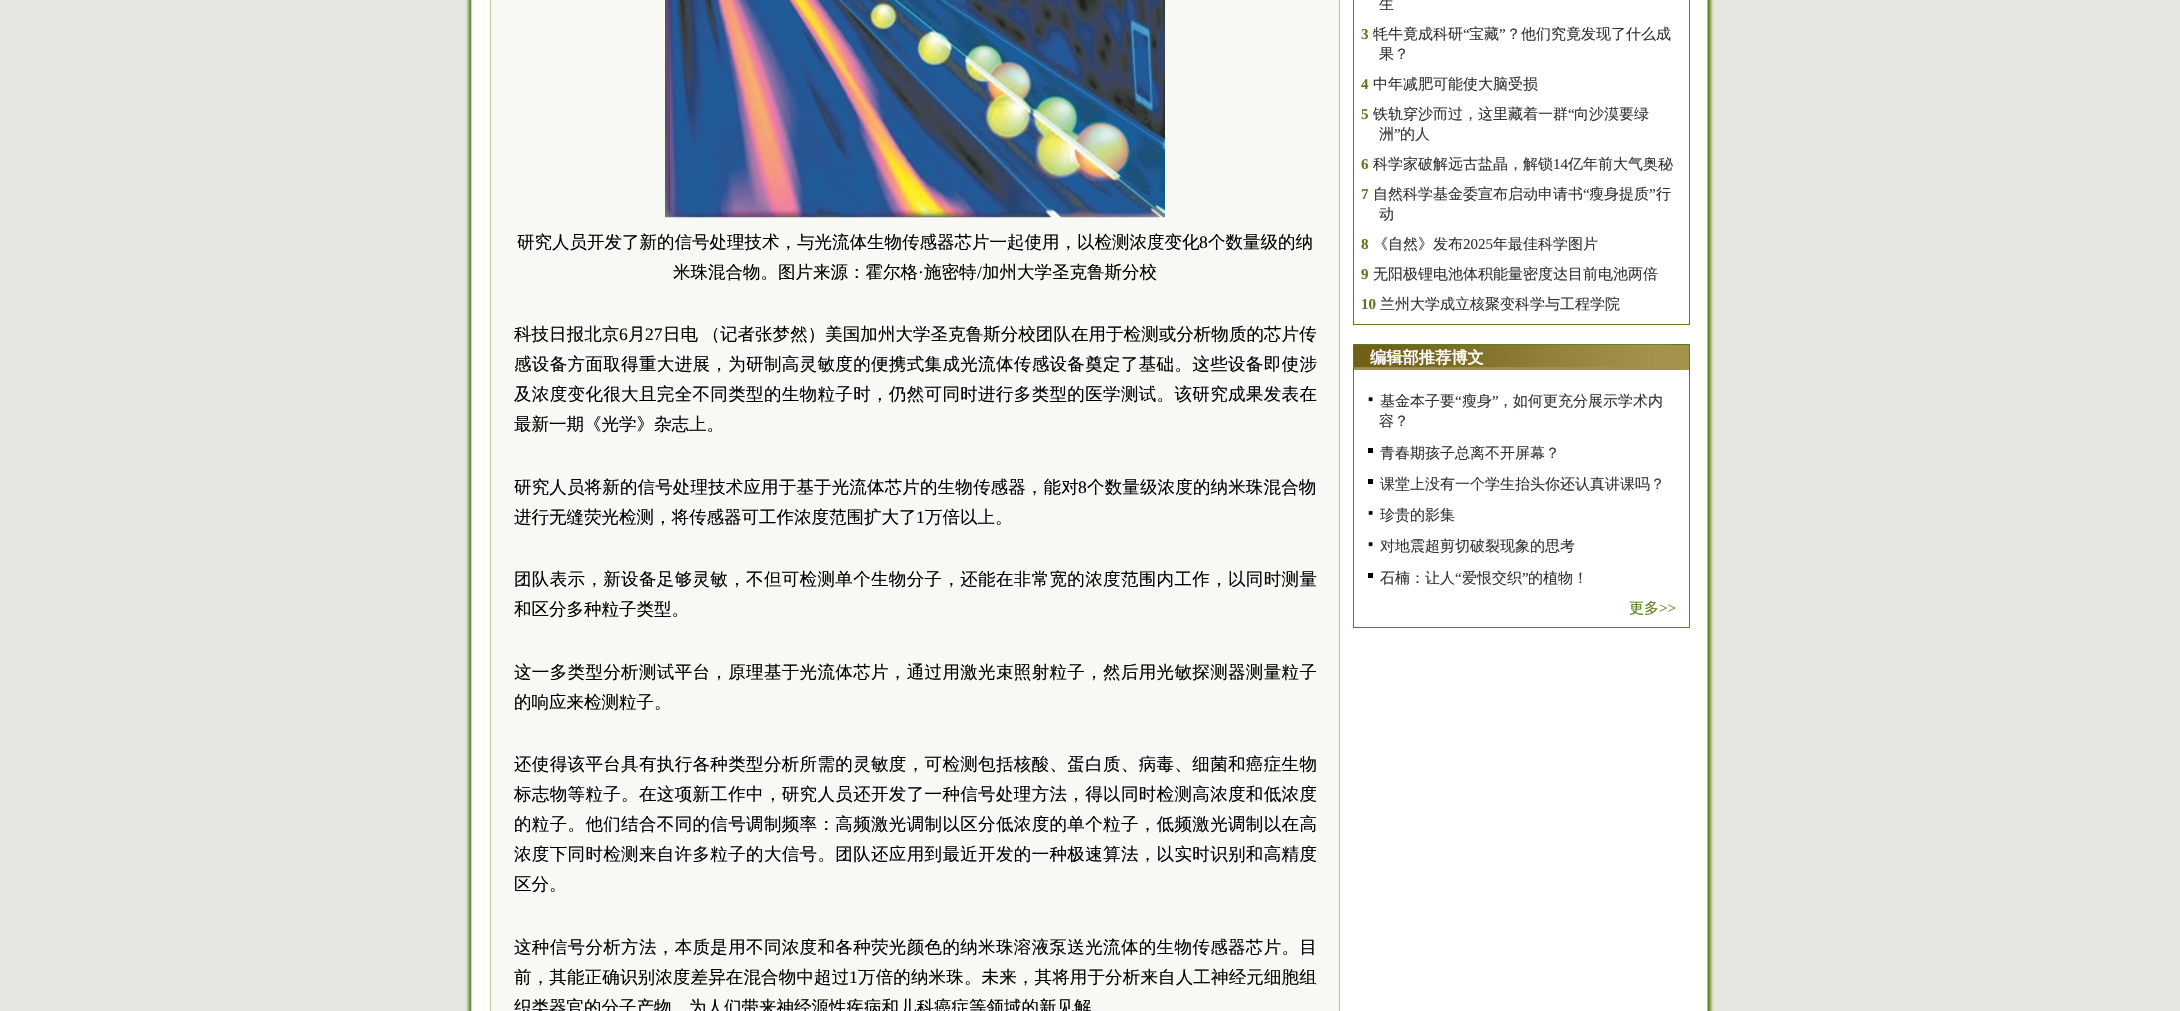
void draw(SkCanvas* canvas) {
    SkPaint paint;
    paint.setAntiAlias(true);
    auto spacedText = [&](const char* s, float x, float y, const SkFont& font, const SkPaint& ink, float letter, float word) {
        std::vector<SkGlyphID> glyphs(font.countText(s, strlen(s), SkTextEncoding::kUTF8));
        std::vector<float> xs(glyphs.size());
        font.textToGlyphs(s, strlen(s), SkTextEncoding::kUTF8, glyphs);
        font.getXPos(glyphs, xs, x);
        float extra = 0;
        for (size_t i = 0; i < glyphs.size(); i++) {
            xs[i] += extra;
            extra += letter + word * (glyphs[i] == font.unicharToGlyph(' '));
        }
        canvas->drawTextBlob(SkTextBlob::MakeFromPosHGlyphs(glyphs, xs, y, font), 0, 0, ink);
    };
    canvas->clear(0xFFE4E6DF);
    canvas->drawImageRect(SkImages::DeferredFromEncodedData(SkData::MakeFromFileName("img1.png")), SkRect::MakeXYWH(464, 0, 1250, 1011), SkSamplingOptions());
    paint.setColor(0xFFF8F9F4);
    canvas->drawRect(SkRect::MakeXYWH(490.5f, -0.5f, 849, 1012), paint);
    paint.setStyle(SkPaint::kStroke_Style);
    paint.setStrokeWidth(1);
    paint.setColor(0xFFBBC89B);
    canvas->drawRect(SkRect::MakeXYWH(490.5f, -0.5f, 849, 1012), paint);
    canvas->drawImageRect(SkImages::DeferredFromEncodedData(SkData::MakeFromFileName("img2.png")), SkRect::MakeXYWH(665, 0, 500, 218), SkSamplingOptions());
    SkFont font1(fontMgr->matchFamilyStyle("WenQuanYi Zen Hei", SkFontStyle(500, SkFontStyle::kNormal_Width, SkFontStyle::kUpright_Slant)), 17.5f);
    font1.setSubpixel(true);
    paint.setStyle(SkPaint::kFill_Style);
    paint.setColor(0xFF000000);
    canvas->drawString("研究人员开发了新的信号处理技术，与光流体生物传感器芯片一起使用，以检测浓度变化", 517, 248, font1, paint);
    SkFont font2(fontMgr->matchFamilyStyle("Liberation Serif", SkFontStyle::Normal()), 17.5f);
    font2.setSubpixel(true);
    canvas->drawString("8", 1199, 248, font2, paint);
    canvas->drawString("个数量级的纳", 1208, 248, font1, paint);
    canvas->drawString("米珠混合物。图片来源：霍尔格", 673, 278, font1, paint);
    canvas->drawString("·", 918, 278, font2, paint);
    canvas->drawString("施密特", 924, 278, font1, paint);
    canvas->drawString("/", 977, 278, font2, paint);
    canvas->drawString("加州大学圣克鲁斯分校", 982, 278, font1, paint);
    spacedText("科技日报北京", 514, 340, font1, paint, 0.05f, 0);
    spacedText("6", 619, 340, font2, paint, 0.05f, 0);
    spacedText("月", 628, 340, font1, paint, 0.05f, 0);
    spacedText("27", 645, 340, font2, paint, 0.05f, 0);
    spacedText("日电 （记者张梦然）美国加州大学圣克鲁斯分校团队在用于检测或分析物质的芯片传", 663, 340, font1, paint, 0.05f, -1);
    spacedText("感设备方面取得重大进展，为研制高灵敏度的便携式集成光流体传感设备奠定了基础。这些设备即使涉", 514, 370, font1, paint, 0.35f, 0);
    spacedText("及浓度变化很大且完全不同类型的生物粒子时，仍然可同时进行多类型的医学测试。该研究成果发表在", 514, 400, font1, paint, 0.35f, 0);
    canvas->drawString("最新一期《光学》杂志上。", 514, 430, font1, paint);
    spacedText("研究人员将新的信号处理技术应用于基于光流体芯片的生物传感器，能对", 514, 493, font1, paint, 0.15f, 0);
    spacedText("8", 1078, 493, font2, paint, 0.15f, 0);
    spacedText("个数量级浓度的纳米珠混合物", 1087, 493, font1, paint, 0.15f, 0);
    canvas->drawString("进行无缝荧光检测，将传感器可工作浓度范围扩大了", 514, 523, font1, paint);
    canvas->drawString("1", 916, 523, font2, paint);
    canvas->drawString("万倍以上。", 925, 523, font1, paint);
    spacedText("团队表示，新设备足够灵敏，不但可检测单个生物分子，还能在非常宽的浓度范围内工作，以同时测量", 514, 585, font1, paint, 0.35f, 0);
    canvas->drawString("和区分多种粒子类型。", 514, 615, font1, paint);
    spacedText("这一多类型分析测试平台，原理基于光流体芯片，通过用激光束照射粒子，然后用光敏探测器测量粒子", 514, 678, font1, paint, 0.35f, 0);
    canvas->drawString("的响应来检测粒子。", 514, 708, font1, paint);
    spacedText("还使得该平台具有执行各种类型分析所需的灵敏度，可检测包括核酸、蛋白质、病毒、细菌和癌症生物", 514, 770, font1, paint, 0.35f, 0);
    spacedText("标志物等粒子。在这项新工作中，研究人员还开发了一种信号处理方法，得以同时检测高浓度和低浓度", 514, 800, font1, paint, 0.35f, 0);
    spacedText("的粒子。他们结合不同的信号调制频率：高频激光调制以区分低浓度的单个粒子，低频激光调制以在高", 514, 830, font1, paint, 0.35f, 0);
    spacedText("浓度下同时检测来自许多粒子的大信号。团队还应用到最近开发的一种极速算法，以实时识别和高精度", 514, 860, font1, paint, 0.35f, 0);
    canvas->drawString("区分。", 514, 890, font1, paint);
    spacedText("这种信号分析方法，本质是用不同浓度和各种荧光颜色的纳米珠溶液泵送光流体的生物传感器芯片。目", 514, 953, font1, paint, 0.35f, 0);
    spacedText("前，其能正确识别浓度差异在混合物中超过", 514, 983, font1, paint, 0.15f, 0);
    spacedText("1", 849, 983, font2, paint, 0.15f, 0);
    spacedText("万倍的纳米珠。未来，其将用于分析来自人工神经元细胞组", 858, 983, font1, paint, 0.15f, 0);
    canvas->drawString("织类器官的分子产物，为人们带来神经源性疾病和儿科癌症等领域的新见解", 514, 1013, font1, paint);
    paint.setStyle(SkPaint::kStroke_Style);
    paint.setColor(0xFF557D1A);
    canvas->drawRect(SkRect::MakeXYWH(1353.5f, -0.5f, 336, 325), paint);
    SkFont font3(fontMgr->matchFamilyStyle("WenQuanYi Zen Hei", SkFontStyle(500, SkFontStyle::kNormal_Width, SkFontStyle::kUpright_Slant)), 15);
    font3.setSubpixel(true);
    paint.setStyle(SkPaint::kFill_Style);
    paint.setColor(0xFF333333);
    canvas->drawString("生", 1379, 9, font3, paint);
    SkFont font4(fontMgr->matchFamilyStyle("Liberation Serif", SkFontStyle::Bold()), 15);
    font4.setSubpixel(true);
    paint.setColor(0xFF587C19);
    canvas->drawString("3", 1361, 39, font4, paint);
    paint.setColor(0xFF333333);
    canvas->drawString("牦牛竟成科研", 1373, 39, font3, paint);
    SkFont font5(fontMgr->matchFamilyStyle("Liberation Serif", SkFontStyle::Normal()), 15);
    font5.setSubpixel(true);
    canvas->drawString("“", 1463, 39, font5, paint);
    canvas->drawString("宝藏", 1469, 39, font3, paint);
    canvas->drawString("”", 1499, 39, font5, paint);
    canvas->drawString("？他们究竟发现了什么成", 1506, 39, font3, paint);
    canvas->drawString("果？", 1379, 59, font3, paint);
    paint.setColor(0xFF587C19);
    canvas->drawString("4", 1361, 89, font4, paint);
    paint.setColor(0xFF333333);
    canvas->drawString("中年减肥可能使大脑受损", 1373, 89, font3, paint);
    paint.setColor(0xFF587C19);
    canvas->drawString("5", 1361, 119, font4, paint);
    paint.setColor(0xFF333333);
    canvas->drawString("铁轨穿沙而过，这里藏着一群", 1373, 119, font3, paint);
    canvas->drawString("“", 1568, 119, font5, paint);
    canvas->drawString("向沙漠要绿", 1574, 119, font3, paint);
    canvas->drawString("洲", 1379, 139, font3, paint);
    canvas->drawString("”", 1394, 139, font5, paint);
    canvas->drawString("的人", 1400, 139, font3, paint);
    paint.setColor(0xFF587C19);
    canvas->drawString("6", 1361, 169, font4, paint);
    paint.setColor(0xFF333333);
    canvas->drawString("科学家破解远古盐晶，解锁", 1373, 169, font3, paint);
    canvas->drawString("14", 1553, 169, font5, paint);
    canvas->drawString("亿年前大气奥秘", 1568, 169, font3, paint);
    paint.setColor(0xFF587C19);
    canvas->drawString("7", 1361, 199, font4, paint);
    paint.setColor(0xFF333333);
    canvas->drawString("自然科学基金委宣布启动申请书", 1373, 199, font3, paint);
    canvas->drawString("“", 1583, 199, font5, paint);
    canvas->drawString("瘦身提质", 1589, 199, font3, paint);
    canvas->drawString("”", 1649, 199, font5, paint);
    canvas->drawString("行", 1656, 199, font3, paint);
    canvas->drawString("动", 1379, 219, font3, paint);
    paint.setColor(0xFF587C19);
    canvas->drawString("8", 1361, 249, font4, paint);
    paint.setColor(0xFF333333);
    canvas->drawString("《自然》发布", 1373, 249, font3, paint);
    canvas->drawString("2025", 1463, 249, font5, paint);
    canvas->drawString("年最佳科学图片", 1493, 249, font3, paint);
    paint.setColor(0xFF587C19);
    canvas->drawString("9", 1361, 279, font4, paint);
    paint.setColor(0xFF333333);
    canvas->drawString("无阳极锂电池体积能量密度达目前电池两倍", 1373, 279, font3, paint);
    paint.setColor(0xFF587C19);
    canvas->drawString("10", 1361, 309, font4, paint);
    paint.setColor(0xFF333333);
    canvas->drawString("兰州大学成立核聚变科学与工程学院", 1380, 309, font3, paint);
    paint.setStyle(SkPaint::kStroke_Style);
    paint.setColor(0xFF557D1A);
    canvas->drawRect(SkRect::MakeXYWH(1353.5f, 344.5f, 336, 283), paint);
    paint.setStyle(SkPaint::kFill_Style);
    paint.setColor(0xFFA4934B);
    canvas->drawRect(SkRect::MakeXYWH(1354, 345, 335, 25), paint);
    canvas->drawImageRect(SkImages::DeferredFromEncodedData(SkData::MakeFromFileName("img3.png")), SkRect::MakeXYWH(1353, 344, 317, 24), SkSamplingOptions());
    SkFont font6(fontMgr->matchFamilyStyle("WenQuanYi Zen Hei", SkFontStyle::Bold()), 16.25f);
    font6.setSubpixel(true);
    paint.setColor(0xFFFFFFFF);
    canvas->drawString("编辑部推荐博文", 1370, 363, font6, paint);
    canvas->drawImageRect(SkImages::DeferredFromEncodedData(SkData::MakeFromFileName("img4.png")), SkRect::MakeXYWH(1368, 397, 5, 5), SkSamplingOptions());
    paint.setColor(0xFF333333);
    canvas->drawString("基金本子要", 1380, 406, font3, paint);
    canvas->drawString("“", 1455, 406, font5, paint);
    canvas->drawString("瘦身", 1462, 406, font3, paint);
    canvas->drawString("”", 1492, 406, font5, paint);
    canvas->drawString("，如何更充分展示学术内", 1498, 406, font3, paint);
    canvas->drawString("容？", 1379, 426, font3, paint);
    paint.setColor(0xFF000000);
    canvas->drawRect(SkRect::MakeXYWH(1368, 448, 5, 5), paint);
    paint.setColor(0xFF333333);
    canvas->drawString("青春期孩子总离不开屏幕？", 1380, 458, font3, paint);
    paint.setColor(0xFF000000);
    canvas->drawRect(SkRect::MakeXYWH(1368, 479, 5, 5), paint);
    paint.setColor(0xFF333333);
    canvas->drawString("课堂上没有一个学生抬头你还认真讲课吗？", 1380, 489, font3, paint);
    canvas->drawImageRect(SkImages::DeferredFromEncodedData(SkData::MakeFromFileName("img5.png")), SkRect::MakeXYWH(1368, 510, 5, 5), SkSamplingOptions());
    canvas->drawString("珍贵的影集", 1380, 520, font3, paint);
    canvas->drawImageRect(SkImages::DeferredFromEncodedData(SkData::MakeFromFileName("img4.png")), SkRect::MakeXYWH(1368, 542, 5, 5), SkSamplingOptions());
    canvas->drawString("对地震超剪切破裂现象的思考", 1380, 551, font3, paint);
    paint.setColor(0xFF000000);
    canvas->drawRect(SkRect::MakeXYWH(1368, 573, 5, 5), paint);
    paint.setColor(0xFF333333);
    canvas->drawString("石楠：让人", 1380, 583, font3, paint);
    canvas->drawString("“", 1455, 583, font5, paint);
    canvas->drawString("爱恨交织", 1462, 583, font3, paint);
    canvas->drawString("”", 1522, 583, font5, paint);
    canvas->drawString("的植物！", 1528, 583, font3, paint);
    paint.setColor(0xFF587C19);
    canvas->drawString("更多", 1629, 613, font3, paint);
    canvas->drawString(">>", 1659, 613, font5, paint);
}
